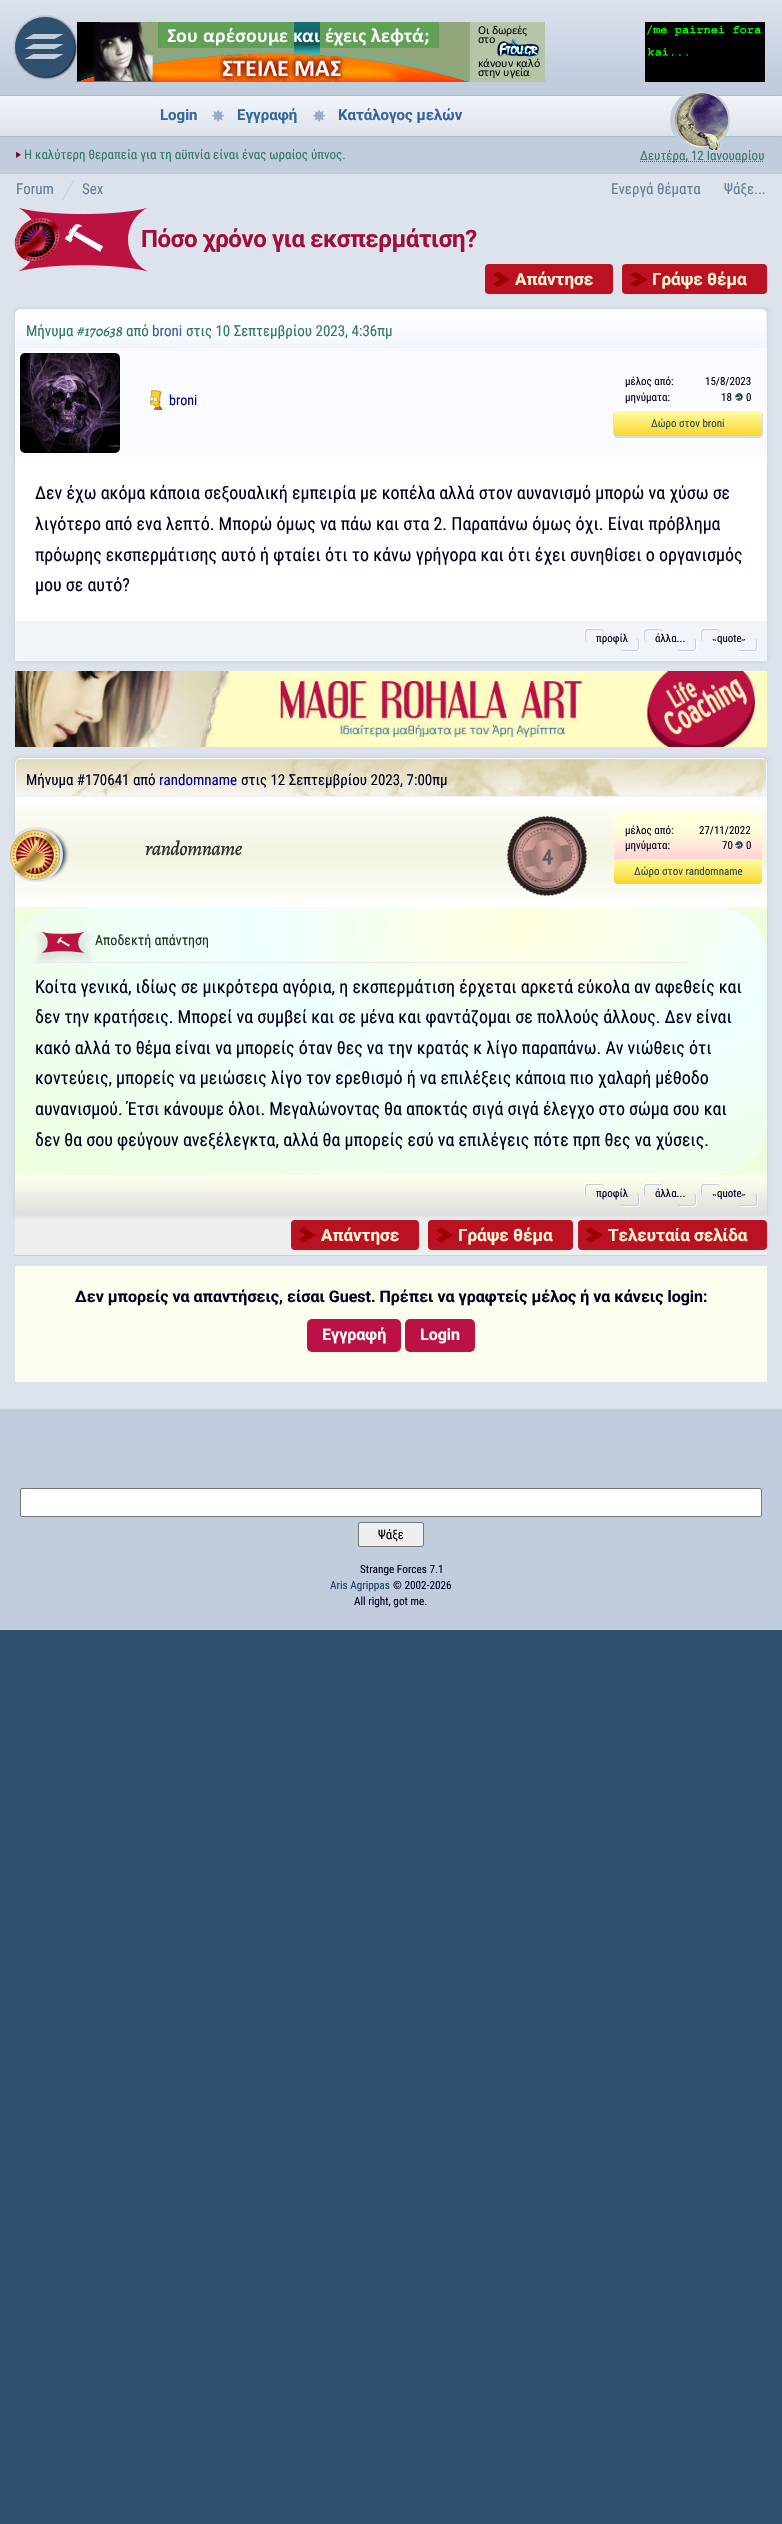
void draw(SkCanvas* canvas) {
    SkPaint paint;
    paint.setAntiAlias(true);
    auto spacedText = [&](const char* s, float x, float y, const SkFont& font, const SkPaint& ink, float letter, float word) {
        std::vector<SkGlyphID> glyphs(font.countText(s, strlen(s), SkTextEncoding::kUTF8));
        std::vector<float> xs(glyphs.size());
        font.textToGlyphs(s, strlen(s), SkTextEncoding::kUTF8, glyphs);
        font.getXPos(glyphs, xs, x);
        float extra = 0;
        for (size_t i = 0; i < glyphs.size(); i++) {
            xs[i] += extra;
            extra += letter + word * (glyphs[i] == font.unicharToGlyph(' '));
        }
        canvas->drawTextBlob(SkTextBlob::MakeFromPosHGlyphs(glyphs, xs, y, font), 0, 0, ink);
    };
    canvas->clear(0xFF305070);
    {
        const SkColor colors[] = {0xFFDDE3ED, 0xFFC1CCDD};
        const float stops[] = {0, 0.45f};
        const SkPoint ends[] = {{391, 0}, {391, 174}};
        paint.setShader(SkGradientShader::MakeLinear(ends, colors, stops, 2, SkTileMode::kClamp));
        paint.setAlpha(255);
    }
    canvas->drawRect(SkRect::MakeXYWH(0, 0, 782, 174), paint);
    paint.setStyle(SkPaint::kStroke_Style);
    paint.setStrokeWidth(2);
    paint.setShader(nullptr);
    paint.setColor(0xFFC1CCDD);
    canvas->drawCircle(45, 47, 31, paint);
    canvas->drawImageRect(SkImages::DeferredFromEncodedData(SkData::MakeFromFileName("img2.png")), SkRect::MakeXYWH(77, 22, 468, 60), SkSamplingOptions());
    paint.setStyle(SkPaint::kFill_Style);
    paint.setColor(0xFF000000);
    paint.setMaskFilter(SkMaskFilter::MakeBlur(kNormal_SkBlurStyle, 1));
    canvas->drawRoundRect(SkRect::MakeXYWH(16, 18, 60, 60), 30, 30, paint);
    paint.setMaskFilter(nullptr);
    paint.setColor(0xFF305070);
    canvas->drawCircle(45, 47, 30, paint);
    paint.setColor(0xFFC1CCDD);
    canvas->drawPath(SkPathBuilder().moveTo(33.5f, 34).lineTo(63.5f, 34).lineTo(54.5f, 39).lineTo(24.5f, 39).close().moveTo(33.5f, 44).lineTo(63.5f, 44).lineTo(54.5f, 49).lineTo(24.5f, 49).close().moveTo(33.5f, 54).lineTo(63.5f, 54).lineTo(54.5f, 59).lineTo(24.5f, 59).close().detach(), paint);
    paint.setColor(0xFF6CADAD);
    paint.setMaskFilter(SkMaskFilter::MakeBlur(kNormal_SkBlurStyle, 1));
    canvas->drawRect(SkRect::MakeXYWH(0, 96, 782, 40), paint);
    paint.setMaskFilter(nullptr);
    {
        const SkColor colors[] = {0xFFFFFFFF, 0xFFDDE3ED};
        const float stops[] = {0, 1};
        const SkPoint ends[] = {{391, 73}, {391, 136}};
        paint.setShader(SkGradientShader::MakeLinear(ends, colors, stops, 2, SkTileMode::kClamp));
        paint.setAlpha(255);
    }
    canvas->drawRect(SkRect::MakeXYWH(0, 96, 782, 40), paint);
    paint.setStyle(SkPaint::kStroke_Style);
    paint.setStrokeWidth(1);
    paint.setShader(nullptr);
    paint.setColor(0xFF337766);
    paint.setPathEffect(SkDashPathEffect::Make({{1, 1}}, 0));
    canvas->drawPath(SkPathBuilder().moveTo(640, 161.5f).lineTo(764, 161.5f).detach(), paint);
    paint.setPathEffect(nullptr);
    SkFont font1(fontMgr->matchFamilyStyle("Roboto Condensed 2", SkFontStyle::Normal()), 13);
    font1.setSubpixel(true);
    paint.setStyle(SkPaint::kFill_Style);
    canvas->drawString("Δευτέρα, 12 Ιανουαρίου", 640, 160, font1, paint);
    paint.setColor(0xFFC1CCDD);
    canvas->drawCircle(700, 120, 30, paint);
    canvas->drawImageRect(SkImages::DeferredFromEncodedData(SkData::MakeFromFileName("img1.png")), SkRect::MakeXYWH(674, 92, 55, 58), SkSamplingOptions());
    canvas->drawImageRect(SkImages::DeferredFromEncodedData(SkData::MakeFromFileName("img3.png")), SkRect::MakeXYWH(645, 22, 120, 60), SkSamplingOptions());
    SkFont font2(fontMgr->matchFamilyStyle("Roboto", SkFontStyle::Bold()), 15);
    font2.setSubpixel(true);
    paint.setColor(0xFF336699);
    canvas->drawString("Login", 160, 120, font2, paint);
    SkFont font3(fontMgr->matchFamilyStyle("DejaVu Sans", SkFontStyle::Normal()), 17);
    font3.setSubpixel(true);
    paint.setColor(0xFF97ABCE);
    canvas->drawString("✸", 211, 122, font3, paint);
    paint.setColor(0xFF336699);
    canvas->drawString("Εγγραφή", 237, 120, font2, paint);
    paint.setColor(0xFF97ABCE);
    canvas->drawString("✸", 312, 122, font3, paint);
    paint.setColor(0xFF336699);
    canvas->drawString("Κατάλογος μελών", 338, 120, font2, paint);
    SkFont font4(fontMgr->matchFamilyStyle("Roboto Condensed", SkFontStyle::Normal()), 13);
    font4.setSubpixel(true);
    paint.setColor(0xFF880033);
    canvas->drawString("‣", 15, 159, font4, paint);
    paint.setColor(0xFF337766);
    canvas->drawString("Η καλύτερη θεραπεία για τη αϋπνία είναι ένας ωραίος ύπνος.", 24, 159, font1, paint);
    paint.setColor(0xFFDDE3ED);
    canvas->drawRect(SkRect::MakeXYWH(0, 174, 782, 1235), paint);
    SkFont font5(fontMgr->matchFamilyStyle("Roboto Condensed 2", SkFontStyle::Normal()), 15);
    font5.setSubpixel(true);
    paint.setColor(0xFF647E97);
    canvas->drawString("Forum", 16, 194, font5, paint);
    paint.setColor(0xFFC1CCDD);
    canvas->drawPath(SkPathBuilder().moveTo(73.5f, 180).lineTo(74.5f, 180).lineTo(63, 200).lineTo(62, 200).close().detach(), paint);
    paint.setColor(0xFF647E97);
    canvas->drawString("Sex", 82, 194, font5, paint);
    canvas->drawString("Ενεργά θέματα", 611, 194, font5, paint);
    canvas->drawString("Ψάξε...", 724, 194, font5, paint);
    canvas->drawImageRect(SkImages::DeferredFromEncodedData(SkData::MakeFromFileName("img4.png")), SkRect::MakeXYWH(18, 207, 130, 65), SkSamplingOptions());
    canvas->drawImageRect(SkImages::DeferredFromEncodedData(SkData::MakeFromFileName("img5.png")), SkRect::MakeXYWH(14, 217, 47, 45), SkSamplingOptions());
    SkFont font6(fontMgr->matchFamilyStyle("Roboto", SkFontStyle::Bold()), 24);
    font6.setSubpixel(true);
    paint.setColor(0xFFA20E3B);
    spacedText("Πόσο χρόνο για εκσπερμάτιση?", 141, 247, font6, paint, -0.4f, 0);
    paint.setColor(0xFFBB1122);
    canvas->drawRoundRect(SkRect::MakeXYWH(485, 264, 128, 30), 4, 4, paint);
    paint.setColor(0xFF9A0000);
    canvas->drawPath(SkPathBuilder().moveTo(498, 272).lineTo(510, 279.5f).lineTo(505, 282.5f).lineTo(493, 275).close().detach(), paint);
    canvas->drawPath(SkPathBuilder().moveTo(505, 276.5f).lineTo(510, 279.5f).lineTo(498, 287).lineTo(493, 284).close().detach(), paint);
    SkFont font7(fontMgr->matchFamilyStyle("Roboto", SkFontStyle::Bold()), 17);
    font7.setSubpixel(true);
    paint.setColor(0xFFFFF7D6);
    canvas->drawString("Απάντησε", 515, 285, font7, paint);
    paint.setColor(0xFFBB1122);
    canvas->drawRoundRect(SkRect::MakeXYWH(622, 264, 145, 30), 4, 4, paint);
    paint.setColor(0xFF9A0000);
    canvas->drawPath(SkPathBuilder().moveTo(635.5f, 272).lineTo(647.5f, 279.5f).lineTo(642.5f, 282.5f).lineTo(630.5f, 275).close().detach(), paint);
    canvas->drawPath(SkPathBuilder().moveTo(642.5f, 276.5f).lineTo(647.5f, 279.5f).lineTo(635.5f, 287).lineTo(630.5f, 284).close().detach(), paint);
    paint.setColor(0xFFFFF7D6);
    canvas->drawString("Γράψε θέμα", 652, 285, font7, paint);
    paint.setColor(0xFFC1CCDD);
    paint.setMaskFilter(SkMaskFilter::MakeBlur(kNormal_SkBlurStyle, 2.5f));
    canvas->drawRect(SkRect::MakeXYWH(15, 309, 752, 352), paint);
    paint.setMaskFilter(nullptr);
    canvas->save();
    canvas->clipPath(SkPathBuilder().moveTo(21, 309).lineTo(761, 309).cubicTo(764.5f, 309, 767, 311.5f, 767, 315).lineTo(767, 348).lineTo(15, 348).lineTo(15, 315).cubicTo(15, 311.5f, 17.5f, 309, 21, 309).close().detach(), true);
    {
        const SkColor colors[] = {0xFFFFFFFF, 0xFFF1F6FF};
        const float stops[] = {0, 1};
        const SkPoint ends[] = {{391, 273}, {391, 310}};
        paint.setShader(SkGradientShader::MakeLinear(ends, colors, stops, 2, SkTileMode::kClamp));
        paint.setAlpha(255);
    }
    canvas->drawRect(SkRect::MakeXYWH(15, 309, 752, 1), paint);
    {
        const SkColor colors[] = {0xFFFFFFFF, 0xFFF1F6FF};
        const float stops[] = {0, 1};
        const SkPoint ends[] = {{391, 310}, {391, 347}};
        paint.setShader(SkGradientShader::MakeLinear(ends, colors, stops, 2, SkTileMode::kClamp));
        paint.setAlpha(255);
    }
    canvas->drawRect(SkRect::MakeXYWH(15, 310, 752, 37), paint);
    canvas->restore();
    paint.setShader(nullptr);
    paint.setColor(0xFFFFFFFF);
    canvas->drawPath(SkPathBuilder().moveTo(21, 309).cubicTo(20, 309, 18, 310, 17, 311).cubicTo(18, 310, 20, 310, 21, 310).lineTo(761, 310).cubicTo(762, 310, 764, 310, 765, 311).cubicTo(764, 310, 762, 309, 761, 309).close().detach(), paint);
    paint.setColor(0xFFEEEEFF);
    canvas->drawPath(SkPathBuilder().moveTo(767, 348).lineTo(767, 315).cubicTo(767, 313.5f, 766, 312, 765, 311).lineTo(764.5f, 311.5f).cubicTo(765.5f, 312, 766, 313.5f, 766, 315).lineTo(766, 347).close().detach(), paint);
    paint.setColor(0xFFF0F0FF);
    canvas->drawPath(SkPathBuilder().moveTo(767, 348).lineTo(766, 347).lineTo(16, 347).lineTo(15, 348).close().detach(), paint);
    paint.setColor(0xFFFFFFFF);
    canvas->drawPath(SkPathBuilder().moveTo(15, 348).lineTo(16, 347).lineTo(16, 315).cubicTo(16, 313.5f, 16.5f, 312, 17.5f, 311.5f).lineTo(17, 311).cubicTo(16, 312, 15, 313.5f, 15, 315).close().detach(), paint);
    paint.setColor(0xFF337766);
    canvas->drawString("Μήνυμα", 26, 336, font5, paint);
    SkFont font8(fontMgr->matchFamilyStyle("Alegreya", SkFontStyle(500, SkFontStyle::kNormal_Width, SkFontStyle::kItalic_Slant)), 15);
    font8.setSubpixel(true);
    canvas->drawString("#170638", 77, 336, font8, paint);
    canvas->drawString("από", 126, 336, font5, paint);
    paint.setColor(0xFF336699);
    canvas->drawString("broni", 152, 336, font5, paint);
    paint.setColor(0xFF337766);
    canvas->drawString("στις 10 Σεπτεμβρίου 2023, 4:36πμ", 186, 336, font5, paint);
    paint.setColor(0xFFF9FBFF);
    canvas->drawRect(SkRect::MakeXYWH(15, 348, 752, 110), paint);
    canvas->drawImageRect(SkImages::DeferredFromEncodedData(SkData::MakeFromFileName("img6.png")), SkRect::MakeXYWH(20, 353, 100, 100), SkSamplingOptions());
    canvas->drawImageRect(SkImages::DeferredFromEncodedData(SkData::MakeFromFileName("img7.png")), SkRect::MakeXYWH(149, 390, 14, 20), SkSamplingOptions());
    SkFont font9(fontMgr->matchFamilyStyle("Roboto Condensed 2", SkFontStyle::Normal()), 14);
    font9.setSubpixel(true);
    paint.setColor(0xFF000088);
    canvas->drawString("broni", 169, 405, font9, paint);
    SkFont font10(fontMgr->matchFamilyStyle("Roboto Condensed 2", SkFontStyle::Normal()), 11);
    font10.setSubpixel(true);
    paint.setColor(0xFF000022);
    canvas->drawString("μέλος από:", 625, 385, font10, paint);
    canvas->drawString("15/8/2023", 705, 385, font10, paint);
    canvas->drawString("μηνύματα:", 625, 401, font10, paint);
    canvas->drawString("18", 721, 401, font10, paint);
    canvas->drawImageRect(SkImages::DeferredFromEncodedData(SkData::MakeFromFileName("img8.png")), SkRect::MakeXYWH(735, 393, 8, 8), SkSamplingOptions());
    canvas->drawString("0", 746, 401, font10, paint);
    paint.setColor(0xFFD6DDE6);
    canvas->drawPath(SkPathBuilder().moveTo(618, 411).cubicTo(615, 411, 613, 413, 613, 416).lineTo(613, 433).cubicTo(613, 436, 615, 438, 618, 438).lineTo(758, 438).cubicTo(761, 438, 763, 436, 763, 433).lineTo(763, 416).cubicTo(763, 413, 761, 411, 758, 411).cubicTo(760, 411, 762, 413, 762, 415).lineTo(762, 432).cubicTo(762, 434, 760, 436, 758, 436).lineTo(618, 436).cubicTo(616, 436, 614, 434, 614, 432).lineTo(614, 415).cubicTo(614, 413, 616, 411, 618, 411).close().detach(), paint);
    {
        const SkColor colors[] = {0xFFF7D629, 0xFFFFFCA4};
        const float stops[] = {0, 1};
        const SkPoint ends[] = {{688, 436}, {688, 411}};
        paint.setShader(SkGradientShader::MakeLinear(ends, colors, stops, 2, SkTileMode::kClamp));
        paint.setAlpha(255);
    }
    canvas->drawRoundRect(SkRect::MakeXYWH(614, 411, 148, 25), 4, 4, paint);
    paint.setShader(nullptr);
    paint.setColor(0xFF35494A);
    canvas->drawString("Δώρο στον broni", 651, 427, font10, paint);
    paint.setColor(0xFFFFFFFF);
    canvas->drawRect(SkRect::MakeXYWH(15, 458, 752, 163), paint);
    SkFont font11(fontMgr->matchFamilyStyle("Roboto Condensed 2", SkFontStyle::Normal()), 18);
    font11.setSubpixel(true);
    paint.setColor(0xFF000022);
    canvas->drawString("Δεν έχω ακόμα κάποια σεξουαλική εμπειρία με κοπέλα αλλά στον αυνανισμό μπορώ να χύσω σε", 35, 499, font11, paint);
    canvas->drawString("λιγότερο από ενα λεπτό. Μπορώ όμως να πάω και στα 2. Παραπάνω όμως όχι. Είναι πρόβλημα", 35, 530, font11, paint);
    canvas->drawString("πρόωρης εκσπερμάτισης αυτό ή φταίει ότι το κάνω γρήγορα και ότι έχει συνηθίσει ο οργανισμός", 35, 561, font11, paint);
    canvas->drawString("μου σε αυτό?", 35, 591, font11, paint);
    paint.setColor(0xFFF1F5F9);
    canvas->drawRect(SkRect::MakeXYWH(15, 621, 752, 40), paint);
    paint.setColor(0xFF000022);
    canvas->drawString("προφίλ", 596, 642, font10, paint);
    paint.setColor(0xFFFFFFFF);
    canvas->drawPath(SkPathBuilder().moveTo(587, 628).cubicTo(583.5f, 628, 584, 632, 584, 634.5f).cubicTo(584, 636.5f, 583.5f, 639.5f, 585.5f, 640.5f).lineTo(585, 639).lineTo(585, 632).cubicTo(585, 630.5f, 586.5f, 629, 588, 629).lineTo(601, 629).lineTo(602.5f, 629.5f).cubicTo(602, 628.5f, 601, 628, 600, 628).close().detach(), paint);
    paint.setColor(0xFFC1CCDD);
    canvas->drawPath(SkPathBuilder(SkPathFillType::kEvenOdd).moveTo(588, 629).lineTo(599, 629).cubicTo(604.5f, 629, 604, 630.5f, 604, 635.5f).cubicTo(604, 638, 604.5f, 642, 601, 642).lineTo(587.5f, 642).cubicTo(584, 641, 585, 635.5f, 585, 633).cubicTo(585, 631, 585.5f, 629, 588, 629).close().moveTo(588, 630).lineTo(599, 630).cubicTo(604, 630, 604, 630.5f, 604, 635.5f).cubicTo(604, 638, 604.5f, 642, 601, 642).lineTo(587.5f, 642).cubicTo(585.5f, 641, 586, 637, 586, 635.5f).cubicTo(586, 634, 585.5f, 630, 588, 630).close().detach(), paint);
    paint.setColor(0xFFFFFFFF);
    canvas->drawPath(SkPathBuilder().moveTo(621.5f, 650.5f).cubicTo(623, 653, 628, 652, 630.5f, 652).cubicTo(639.5f, 652, 640, 653.5f, 640, 644.5f).cubicTo(640, 642.5f, 640.5f, 640.5f, 638.5f, 639.5f).lineTo(639, 641).lineTo(639, 648).cubicTo(639, 649.5f, 637.5f, 651, 636, 651).lineTo(623, 651).close().detach(), paint);
    paint.setColor(0xFFC1CCDD);
    canvas->drawPath(SkPathBuilder(SkPathFillType::kEvenOdd).moveTo(623, 638).lineTo(634, 638).cubicTo(639.5f, 638, 639, 639.5f, 639, 644.5f).cubicTo(639, 647, 639.5f, 651, 636, 651).lineTo(622.5f, 651).cubicTo(619, 650, 620, 644.5f, 620, 642).cubicTo(620, 640, 620.5f, 638, 623, 638).close().moveTo(623, 638).lineTo(631.5f, 638).cubicTo(637.5f, 638, 638, 637.5f, 638, 643.5f).cubicTo(638, 645, 639, 650, 636, 650).lineTo(625, 650).cubicTo(619, 650, 620, 649, 620, 643.5f).cubicTo(620, 641, 620, 638, 623, 638).close().detach(), paint);
    paint.setColor(0xFF000022);
    canvas->drawString("άλλα...", 655, 642, font10, paint);
    paint.setColor(0xFFFFFFFF);
    canvas->drawPath(SkPathBuilder().moveTo(646, 628).cubicTo(642.5f, 628, 643, 632, 643, 634.5f).cubicTo(643, 636.5f, 642.5f, 639.5f, 644.5f, 640.5f).lineTo(644, 639).lineTo(644, 632).cubicTo(644, 630.5f, 645.5f, 629, 647, 629).lineTo(660, 629).lineTo(661.5f, 629.5f).cubicTo(661, 628.5f, 660, 628, 659, 628).close().detach(), paint);
    paint.setColor(0xFFC1CCDD);
    canvas->drawPath(SkPathBuilder(SkPathFillType::kEvenOdd).moveTo(647, 629).lineTo(658, 629).cubicTo(663.5f, 629, 663, 630.5f, 663, 635.5f).cubicTo(663, 638, 663.5f, 642, 660, 642).lineTo(646.5f, 642).cubicTo(643, 641, 644, 635.5f, 644, 633).cubicTo(644, 631, 644.5f, 629, 647, 629).close().moveTo(647, 630).lineTo(658, 630).cubicTo(663, 630, 663, 630.5f, 663, 635.5f).cubicTo(663, 638, 663.5f, 642, 660, 642).lineTo(646.5f, 642).cubicTo(644.5f, 641, 645, 637, 645, 635.5f).cubicTo(645, 634, 644.5f, 630, 647, 630).close().detach(), paint);
    paint.setColor(0xFFFFFFFF);
    canvas->drawPath(SkPathBuilder().moveTo(678.5f, 650.5f).cubicTo(680, 653, 685, 652, 687.5f, 652).cubicTo(696.5f, 652, 697, 653.5f, 697, 644.5f).cubicTo(697, 642.5f, 697.5f, 640.5f, 695.5f, 639.5f).lineTo(696, 641).lineTo(696, 648).cubicTo(696, 649.5f, 694.5f, 651, 693, 651).lineTo(680, 651).close().detach(), paint);
    paint.setColor(0xFFC1CCDD);
    canvas->drawPath(SkPathBuilder(SkPathFillType::kEvenOdd).moveTo(680, 638).lineTo(691, 638).cubicTo(696.5f, 638, 696, 639.5f, 696, 644.5f).cubicTo(696, 647, 696.5f, 651, 693, 651).lineTo(679.5f, 651).cubicTo(676, 650, 677, 644.5f, 677, 642).cubicTo(677, 640, 677.5f, 638, 680, 638).close().moveTo(680, 638).lineTo(688.5f, 638).cubicTo(694.5f, 638, 695, 637.5f, 695, 643.5f).cubicTo(695, 645, 696, 650, 693, 650).lineTo(682, 650).cubicTo(676, 650, 677, 649, 677, 643.5f).cubicTo(677, 641, 677, 638, 680, 638).close().detach(), paint);
    paint.setColor(0xFF000022);
    canvas->drawString("quote", 717, 642, font10, paint);
    SkFont font12(fontMgr->matchFamilyStyle("Roboto Condensed", SkFontStyle::Normal()), 11);
    font12.setSubpixel(true);
    canvas->drawString("˵", 712, 642, font12, paint);
    paint.setColor(0xFFFFFFFF);
    canvas->drawPath(SkPathBuilder().moveTo(703, 628).cubicTo(699.5f, 628, 700, 632, 700, 634.5f).cubicTo(700, 636.5f, 699.5f, 639.5f, 701.5f, 640.5f).lineTo(701, 639).lineTo(701, 632).cubicTo(701, 630.5f, 702.5f, 629, 704, 629).lineTo(717, 629).lineTo(718.5f, 629.5f).cubicTo(718, 628.5f, 717, 628, 716, 628).close().detach(), paint);
    paint.setColor(0xFFC1CCDD);
    canvas->drawPath(SkPathBuilder(SkPathFillType::kEvenOdd).moveTo(704, 629).lineTo(715, 629).cubicTo(720.5f, 629, 720, 630.5f, 720, 635.5f).cubicTo(720, 638, 720.5f, 642, 717, 642).lineTo(703.5f, 642).cubicTo(700, 641, 701, 635.5f, 701, 633).cubicTo(701, 631, 701.5f, 629, 704, 629).close().moveTo(704, 630).lineTo(715, 630).cubicTo(720, 630, 720, 630.5f, 720, 635.5f).cubicTo(720, 638, 720.5f, 642, 717, 642).lineTo(703.5f, 642).cubicTo(701.5f, 641, 702, 637, 702, 635.5f).cubicTo(702, 634, 701.5f, 630, 704, 630).close().detach(), paint);
    paint.setColor(0xFF000022);
    canvas->drawString("˶", 741, 642, font12, paint);
    paint.setColor(0xFFFFFFFF);
    canvas->drawPath(SkPathBuilder().moveTo(739.5f, 650.5f).cubicTo(741, 653, 746, 652, 748.5f, 652).cubicTo(757.5f, 652, 758, 653.5f, 758, 644.5f).cubicTo(758, 642.5f, 758.5f, 640.5f, 756.5f, 639.5f).lineTo(757, 641).lineTo(757, 648).cubicTo(757, 649.5f, 755.5f, 651, 754, 651).lineTo(741, 651).close().detach(), paint);
    paint.setColor(0xFFC1CCDD);
    canvas->drawPath(SkPathBuilder(SkPathFillType::kEvenOdd).moveTo(741, 638).lineTo(752, 638).cubicTo(757.5f, 638, 757, 639.5f, 757, 644.5f).cubicTo(757, 647, 757.5f, 651, 754, 651).lineTo(740.5f, 651).cubicTo(737, 650, 738, 644.5f, 738, 642).cubicTo(738, 640, 738.5f, 638, 741, 638).close().moveTo(741, 638).lineTo(749.5f, 638).cubicTo(755.5f, 638, 756, 637.5f, 756, 643.5f).cubicTo(756, 645, 757, 650, 754, 650).lineTo(743, 650).cubicTo(737, 650, 738, 649, 738, 643.5f).cubicTo(738, 641, 738, 638, 741, 638).close().detach(), paint);
    canvas->drawImageRect(SkImages::DeferredFromEncodedData(SkData::MakeFromFileName("img9.png")), SkRect::MakeXYWH(15, 671, 752, 76), SkSamplingOptions());
    paint.setColor(0xFFEEEEEE);
    canvas->drawRect(SkRect::MakeXYWH(15, 1215, 752, 40), paint);
    paint.setColor(0xFFC1CCDD);
    paint.setMaskFilter(SkMaskFilter::MakeBlur(kNormal_SkBlurStyle, 2.5f));
    canvas->drawRect(SkRect::MakeXYWH(15, 758, 752, 457), paint);
    paint.setMaskFilter(nullptr);
    canvas->drawImageRect(SkImages::DeferredFromEncodedData(SkData::MakeFromFileName("img10.png")), SkRect::MakeXYWH(15, 758, 752, 39), SkSamplingOptions());
    paint.setColor(0xFFFFFFFF);
    canvas->drawPath(SkPathBuilder().moveTo(21, 758).cubicTo(20, 758, 18, 759, 17, 760).cubicTo(18, 760, 20, 759, 21, 759).lineTo(761, 759).cubicTo(762, 759, 764, 760, 765, 760).cubicTo(764, 759, 762, 758, 761, 758).close().detach(), paint);
    paint.setColor(0xFFF0F0FF);
    canvas->drawPath(SkPathBuilder().moveTo(767, 797).lineTo(767, 764).cubicTo(767, 762.5f, 766, 761, 765, 760).lineTo(764.5f, 760.5f).cubicTo(765.5f, 761, 766, 762.5f, 766, 764).lineTo(766, 796).close().detach(), paint);
    canvas->drawPath(SkPathBuilder().moveTo(767, 797).lineTo(766, 796).lineTo(16, 796).lineTo(15, 797).close().detach(), paint);
    paint.setColor(0xFFFFFFFF);
    canvas->drawPath(SkPathBuilder().moveTo(15, 797).lineTo(16, 796).lineTo(16, 764).cubicTo(16, 762.5f, 16.5f, 761, 17.5f, 760.5f).lineTo(17, 760).cubicTo(16, 761, 15, 762.5f, 15, 764).close().detach(), paint);
    paint.setColor(0xFF000022);
    canvas->drawString("Μήνυμα #170641 από", 26, 785, font5, paint);
    paint.setColor(0xFF000088);
    canvas->drawString("randomname", 159, 785, font5, paint);
    paint.setColor(0xFF000022);
    canvas->drawString("στις 12 Σεπτεμβρίου 2023, 7:00πμ", 241, 785, font5, paint);
    {
        const SkColor colors[] = {0xFFFFFFFF, 0xFFF3F3E1, 0xFFFFFFFF};
        const float stops[] = {0, 0.5f, 1};
        const SkPoint ends[] = {{391, 797}, {391, 907}};
        paint.setShader(SkGradientShader::MakeLinear(ends, colors, stops, 3, SkTileMode::kClamp));
        paint.setAlpha(255);
    }
    canvas->drawRect(SkRect::MakeXYWH(15, 797, 752, 110), paint);
    SkFont font13(fontMgr->matchFamilyStyle("Alegreya", SkFontStyle(500, SkFontStyle::kNormal_Width, SkFontStyle::kItalic_Slant)), 20);
    font13.setSubpixel(true);
    paint.setShader(nullptr);
    paint.setColor(0xFF333333);
    spacedText("randomname", 145, 855, font13, paint, -0.5f, 0);
    {
        const SkColor colors[] = {0xFFFFFFDB, 0xFFFFBDD4};
        const float stops[] = {0.29f, 1};
        const SkPoint ends[] = {{688, 812}, {688, 873}};
        paint.setShader(SkGradientShader::MakeLinear(ends, colors, stops, 2, SkTileMode::kClamp));
        paint.setAlpha(255);
    }
    canvas->drawRect(SkRect::MakeXYWH(614, 812, 148, 51), paint);
    paint.setShader(nullptr);
    paint.setColor(0xFF000022);
    canvas->drawString("μέλος από:", 625, 834, font10, paint);
    canvas->drawString("27/11/2022", 699, 834, font10, paint);
    canvas->drawString("μηνύματα:", 625, 849, font10, paint);
    canvas->drawString("70", 722, 849, font10, paint);
    canvas->drawImageRect(SkImages::DeferredFromEncodedData(SkData::MakeFromFileName("img11.png")), SkRect::MakeXYWH(735, 841, 8, 8), SkSamplingOptions());
    canvas->drawString("0", 746, 849, font10, paint);
    {
        const SkColor colors[] = {0xFFF7D629, 0xFFFFFCA4};
        const float stops[] = {0, 1};
        const SkPoint ends[] = {{688, 884}, {688, 859}};
        paint.setShader(SkGradientShader::MakeLinear(ends, colors, stops, 2, SkTileMode::kClamp));
        paint.setAlpha(255);
    }
    canvas->drawRoundRect(SkRect::MakeXYWH(614, 859, 148, 25), 4, 4, paint);
    paint.setShader(nullptr);
    paint.setColor(0xFF35494A);
    canvas->drawString("Δώρο στον randomname", 634, 875, font10, paint);
    paint.setColor(0xFFEEFFDD);
    canvas->drawRect(SkRect::MakeXYWH(15, 907, 752, 268), paint);
    canvas->drawImageRect(SkImages::DeferredFromEncodedData(SkData::MakeFromFileName("img12.png")), SkRect::MakeXYWH(32, 930, 64, 36), SkSamplingOptions());
    {
        const SkColor colors[] = {0xFFFFFFDD, 0xFFEEFFFF, 0x00EEFFFF};
        const float stops[] = {0, 0.38f, 1};
        SkMatrix m = SkMatrix::Translate(525, 927).preScale(721, 351);
        paint.setShader(SkGradientShader::MakeRadial({0, 0}, 1, colors, stops, 3, SkTileMode::kClamp, 0, &m));
        paint.setAlpha(255);
    }
    canvas->drawRoundRect(SkRect::MakeXYWH(15, 907, 752, 268), 50, 50, paint);
    paint.setShader(nullptr);
    paint.setColor(0xFF002040);
    paint.setMaskFilter(SkMaskFilter::MakeBlur(kNormal_SkBlurStyle, 2));
    canvas->drawRoundRect(SkRect::MakeXYWH(20, 832, 45, 45), 22.5f, 22.5f, paint);
    paint.setMaskFilter(nullptr);
    paint.setStyle(SkPaint::kStroke_Style);
    paint.setStrokeWidth(3);
    paint.setColor(0xFFDDE3ED);
    canvas->drawCircle(35.5f, 854.5f, 26, paint);
    paint.setStyle(SkPaint::kFill_Style);
    paint.setColor(0xFFECD282);
    canvas->drawCircle(35, 855, 25, paint);
    canvas->drawImageRect(SkImages::DeferredFromEncodedData(SkData::MakeFromFileName("img13.png")), SkRect::MakeXYWH(10, 830, 50, 50), SkSamplingOptions());
    canvas->drawImageRect(SkImages::DeferredFromEncodedData(SkData::MakeFromFileName("img14.png")), SkRect::MakeXYWH(41, 931, 44, 23), SkSamplingOptions());
    paint.setColor(0xFF223322);
    canvas->drawString("Αποδεκτή απάντηση", 95, 945, font9, paint);
    paint.setColor(0xFFEAEAEA);
    canvas->drawRect(SkRect::MakeXYWH(35, 962, 652, 1), paint);
    paint.setColor(0xFF000022);
    canvas->drawString("Κοίτα γενικά, ιδίως σε μικρότερα αγόρια, η εκσπερμάτιση έρχεται αρκετά εύκολα αν αφεθείς και", 35, 993, font11, paint);
    canvas->drawString("δεν την κρατήσεις. Μπορεί να συμβεί και σε μένα και φαντάζομαι σε πολλούς άλλους. Δεν είναι", 35, 1023, font11, paint);
    canvas->drawString("κακό αλλά το θέμα είναι να μπορείς όταν θες να την κρατάς κ λίγο παραπάνω. Αν νιώθεις ότι", 35, 1054, font11, paint);
    canvas->drawString("κοντεύεις, μπορείς να μειώσεις λίγο τον ερεθισμό ή να επιλέξεις κάποια πιο χαλαρή μέθοδο", 35, 1084, font11, paint);
    canvas->drawString("αυνανισμού. Έτσι κάνουμε όλοι. Μεγαλώνοντας θα αποκτάς σιγά σιγά έλεγχο στο σώμα σου και", 35, 1115, font11, paint);
    canvas->drawString("δεν θα σου φεύγουν ανεξέλεγκτα, αλλά θα μπορείς εσύ να επιλέγεις πότε πρπ θες να χύσεις.", 35, 1146, font11, paint);
    {
        const SkColor colors[] = {0xFFFFFFEE, 0xFFDDDDDD, 0xFFAAAAAA};
        const float stops[] = {0.05f, 0.99f, 1};
        const SkPoint ends[] = {{391, 1175}, {391, 1215}};
        paint.setShader(SkGradientShader::MakeLinear(ends, colors, stops, 3, SkTileMode::kClamp));
        paint.setAlpha(255);
    }
    canvas->drawRect(SkRect::MakeXYWH(15, 1175, 752, 40), paint);
    paint.setShader(nullptr);
    paint.setColor(0xFF000022);
    canvas->drawString("προφίλ", 596, 1197, font10, paint);
    paint.setColor(0xFFFFFFFF);
    canvas->drawPath(SkPathBuilder().moveTo(587, 1183).cubicTo(583.5f, 1183, 584, 1187, 584, 1189.5f).cubicTo(584, 1191.5f, 583.5f, 1194.5f, 585.5f, 1195.5f).lineTo(585, 1194).lineTo(585, 1187).cubicTo(585, 1185.5f, 586.5f, 1184, 588, 1184).lineTo(601, 1184).lineTo(602.5f, 1184.5f).cubicTo(602, 1183.5f, 601, 1183, 600, 1183).close().detach(), paint);
    paint.setColor(0xFFC1CCDD);
    canvas->drawPath(SkPathBuilder(SkPathFillType::kEvenOdd).moveTo(588, 1184).lineTo(599, 1184).cubicTo(604.5f, 1184, 604, 1185.5f, 604, 1190.5f).cubicTo(604, 1193, 604.5f, 1197, 601, 1197).lineTo(587.5f, 1197).cubicTo(584, 1196, 585, 1190.5f, 585, 1188).cubicTo(585, 1186, 585.5f, 1184, 588, 1184).close().moveTo(588, 1185).lineTo(599, 1185).cubicTo(604, 1185, 604, 1185.5f, 604, 1190.5f).cubicTo(604, 1193, 604.5f, 1197, 601, 1197).lineTo(587.5f, 1197).cubicTo(585.5f, 1196, 586, 1192, 586, 1190.5f).cubicTo(586, 1189, 585.5f, 1185, 588, 1185).close().detach(), paint);
    paint.setColor(0xFFFFFFFF);
    canvas->drawPath(SkPathBuilder().moveTo(621.5f, 1205.5f).cubicTo(623, 1208, 628, 1207, 630.5f, 1207).cubicTo(639.5f, 1207, 640, 1208.5f, 640, 1199.5f).cubicTo(640, 1197.5f, 640.5f, 1195.5f, 638.5f, 1194.5f).lineTo(639, 1196).lineTo(639, 1203).cubicTo(639, 1204.5f, 637.5f, 1206, 636, 1206).lineTo(623, 1206).close().detach(), paint);
    paint.setColor(0xFFC1CCDD);
    canvas->drawPath(SkPathBuilder(SkPathFillType::kEvenOdd).moveTo(623, 1193).lineTo(634, 1193).cubicTo(639.5f, 1193, 639, 1194.5f, 639, 1199.5f).cubicTo(639, 1202, 639.5f, 1206, 636, 1206).lineTo(622.5f, 1206).cubicTo(619, 1205, 620, 1199.5f, 620, 1197).cubicTo(620, 1195, 620.5f, 1193, 623, 1193).close().moveTo(623, 1193).lineTo(631.5f, 1193).cubicTo(637.5f, 1193, 638, 1192.5f, 638, 1198.5f).cubicTo(638, 1200, 639, 1205, 636, 1205).lineTo(625, 1205).cubicTo(619, 1205, 620, 1204, 620, 1198.5f).cubicTo(620, 1196, 620, 1193, 623, 1193).close().detach(), paint);
    paint.setColor(0xFF000022);
    canvas->drawString("άλλα...", 655, 1197, font10, paint);
    paint.setColor(0xFFFFFFFF);
    canvas->drawPath(SkPathBuilder().moveTo(646, 1183).cubicTo(642.5f, 1183, 643, 1187, 643, 1189.5f).cubicTo(643, 1191.5f, 642.5f, 1194.5f, 644.5f, 1195.5f).lineTo(644, 1194).lineTo(644, 1187).cubicTo(644, 1185.5f, 645.5f, 1184, 647, 1184).lineTo(660, 1184).lineTo(661.5f, 1184.5f).cubicTo(661, 1183.5f, 660, 1183, 659, 1183).close().detach(), paint);
    paint.setColor(0xFFC1CCDD);
    canvas->drawPath(SkPathBuilder(SkPathFillType::kEvenOdd).moveTo(647, 1184).lineTo(658, 1184).cubicTo(663.5f, 1184, 663, 1185.5f, 663, 1190.5f).cubicTo(663, 1193, 663.5f, 1197, 660, 1197).lineTo(646.5f, 1197).cubicTo(643, 1196, 644, 1190.5f, 644, 1188).cubicTo(644, 1186, 644.5f, 1184, 647, 1184).close().moveTo(647, 1185).lineTo(658, 1185).cubicTo(663, 1185, 663, 1185.5f, 663, 1190.5f).cubicTo(663, 1193, 663.5f, 1197, 660, 1197).lineTo(646.5f, 1197).cubicTo(644.5f, 1196, 645, 1192, 645, 1190.5f).cubicTo(645, 1189, 644.5f, 1185, 647, 1185).close().detach(), paint);
    paint.setColor(0xFFFFFFFF);
    canvas->drawPath(SkPathBuilder().moveTo(678.5f, 1205.5f).cubicTo(680, 1208, 685, 1207, 687.5f, 1207).cubicTo(696.5f, 1207, 697, 1208.5f, 697, 1199.5f).cubicTo(697, 1197.5f, 697.5f, 1195.5f, 695.5f, 1194.5f).lineTo(696, 1196).lineTo(696, 1203).cubicTo(696, 1204.5f, 694.5f, 1206, 693, 1206).lineTo(680, 1206).close().detach(), paint);
    paint.setColor(0xFFC1CCDD);
    canvas->drawPath(SkPathBuilder(SkPathFillType::kEvenOdd).moveTo(680, 1193).lineTo(691, 1193).cubicTo(696.5f, 1193, 696, 1194.5f, 696, 1199.5f).cubicTo(696, 1202, 696.5f, 1206, 693, 1206).lineTo(679.5f, 1206).cubicTo(676, 1205, 677, 1199.5f, 677, 1197).cubicTo(677, 1195, 677.5f, 1193, 680, 1193).close().moveTo(680, 1193).lineTo(688.5f, 1193).cubicTo(694.5f, 1193, 695, 1192.5f, 695, 1198.5f).cubicTo(695, 1200, 696, 1205, 693, 1205).lineTo(682, 1205).cubicTo(676, 1205, 677, 1204, 677, 1198.5f).cubicTo(677, 1196, 677, 1193, 680, 1193).close().detach(), paint);
    paint.setColor(0xFF000022);
    canvas->drawString("quote", 717, 1197, font10, paint);
    canvas->drawString("˵", 712, 1197, font12, paint);
    paint.setColor(0xFFFFFFFF);
    canvas->drawPath(SkPathBuilder().moveTo(703, 1183).cubicTo(699.5f, 1183, 700, 1187, 700, 1189.5f).cubicTo(700, 1191.5f, 699.5f, 1194.5f, 701.5f, 1195.5f).lineTo(701, 1194).lineTo(701, 1187).cubicTo(701, 1185.5f, 702.5f, 1184, 704, 1184).lineTo(717, 1184).lineTo(718.5f, 1184.5f).cubicTo(718, 1183.5f, 717, 1183, 716, 1183).close().detach(), paint);
    paint.setColor(0xFFC1CCDD);
    canvas->drawPath(SkPathBuilder(SkPathFillType::kEvenOdd).moveTo(704, 1184).lineTo(715, 1184).cubicTo(720.5f, 1184, 720, 1185.5f, 720, 1190.5f).cubicTo(720, 1193, 720.5f, 1197, 717, 1197).lineTo(703.5f, 1197).cubicTo(700, 1196, 701, 1190.5f, 701, 1188).cubicTo(701, 1186, 701.5f, 1184, 704, 1184).close().moveTo(704, 1185).lineTo(715, 1185).cubicTo(720, 1185, 720, 1185.5f, 720, 1190.5f).cubicTo(720, 1193, 720.5f, 1197, 717, 1197).lineTo(703.5f, 1197).cubicTo(701.5f, 1196, 702, 1192, 702, 1190.5f).cubicTo(702, 1189, 701.5f, 1185, 704, 1185).close().detach(), paint);
    paint.setColor(0xFF000022);
    canvas->drawString("˶", 741, 1197, font12, paint);
    paint.setColor(0xFFFFFFFF);
    canvas->drawPath(SkPathBuilder().moveTo(739.5f, 1205.5f).cubicTo(741, 1208, 746, 1207, 748.5f, 1207).cubicTo(757.5f, 1207, 758, 1208.5f, 758, 1199.5f).cubicTo(758, 1197.5f, 758.5f, 1195.5f, 756.5f, 1194.5f).lineTo(757, 1196).lineTo(757, 1203).cubicTo(757, 1204.5f, 755.5f, 1206, 754, 1206).lineTo(741, 1206).close().detach(), paint);
    paint.setColor(0xFFC1CCDD);
    canvas->drawPath(SkPathBuilder(SkPathFillType::kEvenOdd).moveTo(741, 1193).lineTo(752, 1193).cubicTo(757.5f, 1193, 757, 1194.5f, 757, 1199.5f).cubicTo(757, 1202, 757.5f, 1206, 754, 1206).lineTo(740.5f, 1206).cubicTo(737, 1205, 738, 1199.5f, 738, 1197).cubicTo(738, 1195, 738.5f, 1193, 741, 1193).close().moveTo(741, 1193).lineTo(749.5f, 1193).cubicTo(755.5f, 1193, 756, 1192.5f, 756, 1198.5f).cubicTo(756, 1200, 757, 1205, 754, 1205).lineTo(743, 1205).cubicTo(737, 1205, 738, 1204, 738, 1198.5f).cubicTo(738, 1196, 738, 1193, 741, 1193).close().detach(), paint);
    canvas->drawImageRect(SkImages::DeferredFromEncodedData(SkData::MakeFromFileName("img15.png")), SkRect::MakeXYWH(506, 815, 82, 82), SkSamplingOptions());
    SkFont font14(fontMgr->matchFamilyStyle("Alegreya", SkFontStyle::BoldItalic()), 24);
    font14.setSubpixel(true);
    paint.setColor(0xFF5F5F5F);
    canvas->save();
    canvas->rotate(-8, 543, 863);
    canvas->drawString("4", 543, 863, font14, paint);
    canvas->restore();
    paint.setColor(0xFFCCCCFF);
    canvas->drawRect(SkRect::MakeXYWH(15, 1255, 752, 1), paint);
    paint.setColor(0xFFBB1122);
    canvas->drawRoundRect(SkRect::MakeXYWH(291, 1220, 128, 30), 4, 4, paint);
    paint.setColor(0xFF9A0000);
    canvas->drawPath(SkPathBuilder().moveTo(303.5f, 1227.5f).lineTo(315.5f, 1235).lineTo(310.5f, 1238.5f).lineTo(298.5f, 1230.5f).close().detach(), paint);
    canvas->drawPath(SkPathBuilder().moveTo(310.5f, 1232).lineTo(315.5f, 1235).lineTo(303.5f, 1242.5f).lineTo(298.5f, 1239.5f).close().detach(), paint);
    paint.setColor(0xFFFFF7D6);
    canvas->drawString("Απάντησε", 321, 1241, font7, paint);
    paint.setColor(0xFFBB1122);
    canvas->drawRoundRect(SkRect::MakeXYWH(428, 1220, 145, 30), 4, 4, paint);
    paint.setColor(0xFF9A0000);
    canvas->drawPath(SkPathBuilder().moveTo(441, 1227.5f).lineTo(453, 1235).lineTo(448, 1238.5f).lineTo(436, 1230.5f).close().detach(), paint);
    canvas->drawPath(SkPathBuilder().moveTo(448, 1232).lineTo(453, 1235).lineTo(441, 1242.5f).lineTo(436, 1239.5f).close().detach(), paint);
    paint.setColor(0xFFFFF7D6);
    canvas->drawString("Γράψε θέμα", 458, 1241, font7, paint);
    paint.setColor(0xFFBB1122);
    canvas->drawRoundRect(SkRect::MakeXYWH(578, 1220, 189, 30), 4, 4, paint);
    paint.setColor(0xFF9A0000);
    canvas->drawPath(SkPathBuilder().moveTo(590.5f, 1227.5f).lineTo(602.5f, 1235).lineTo(597.5f, 1238.5f).lineTo(585.5f, 1230.5f).close().detach(), paint);
    canvas->drawPath(SkPathBuilder().moveTo(597.5f, 1232).lineTo(602.5f, 1235).lineTo(590.5f, 1242.5f).lineTo(585.5f, 1239.5f).close().detach(), paint);
    paint.setColor(0xFFFFF7D6);
    canvas->drawString("Τελευταία σελίδα", 608, 1241, font7, paint);
    paint.setColor(0xFFFDFFEE);
    canvas->drawRect(SkRect::MakeXYWH(15, 1266, 752, 116), paint);
    SkFont font15(fontMgr->matchFamilyStyle("Roboto", SkFontStyle::Bold()), 16);
    font15.setSubpixel(true);
    paint.setColor(0xFF000022);
    canvas->drawString("Δεν μπορείς να απαντήσεις, είσαι Guest. Πρέπει να γραφτείς μέλος ή να κάνεις login:", 75, 1302, font15, paint);
    paint.setColor(0xFFBB1144);
    canvas->drawRoundRect(SkRect::MakeXYWH(307, 1319, 94, 33), 5, 5, paint);
    paint.setColor(0xFFFFFFFF);
    canvas->drawString("Εγγραφή", 322, 1340, font15, paint);
    paint.setColor(0xFFBB1144);
    canvas->drawRoundRect(SkRect::MakeXYWH(405, 1319, 70, 33), 5, 5, paint);
    paint.setColor(0xFFFFFFFF);
    canvas->drawString("Login", 420, 1340, font15, paint);
    paint.setColor(0xFFC1CCDD);
    canvas->drawRect(SkRect::MakeXYWH(0, 1409, 782, 221), paint);
    paint.setColor(0xFFFFFFFF);
    canvas->drawRoundRect(SkRect::MakeXYWH(20.5f, 1488.5f, 741, 28), 1.5f, 1.5f, paint);
    paint.setStyle(SkPaint::kStroke_Style);
    paint.setStrokeWidth(1);
    paint.setColor(0xFF767676);
    canvas->drawRoundRect(SkRect::MakeXYWH(20.5f, 1488.5f, 741, 28), 1.5f, 1.5f, paint);
    paint.setStyle(SkPaint::kFill_Style);
    paint.setColor(0xFFEFEFEF);
    canvas->drawRoundRect(SkRect::MakeXYWH(358.5f, 1522.5f, 65, 24), 1.5f, 1.5f, paint);
    paint.setStyle(SkPaint::kStroke_Style);
    paint.setColor(0xFF767676);
    canvas->drawRoundRect(SkRect::MakeXYWH(358.5f, 1522.5f, 65, 24), 1.5f, 1.5f, paint);
    paint.setStyle(SkPaint::kFill_Style);
    paint.setColor(0xFF000000);
    canvas->drawString("Ψάξε", 378, 1539, font1, paint);
    SkFont font16(fontMgr->matchFamilyStyle("Roboto Condensed 2", SkFontStyle::Normal()), 11.25f);
    font16.setSubpixel(true);
    paint.setColor(0xFF000022);
    canvas->drawString("Strange Forces 7.1", 360, 1573, font16, paint);
    paint.setColor(0xFF18466B);
    canvas->drawString("Aris Agrippas", 330, 1589, font16, paint);
    paint.setColor(0xFF000022);
    canvas->drawString("© 2002-2026", 393, 1589, font16, paint);
    canvas->drawString("All right, got me.", 354, 1605, font16, paint);
}
